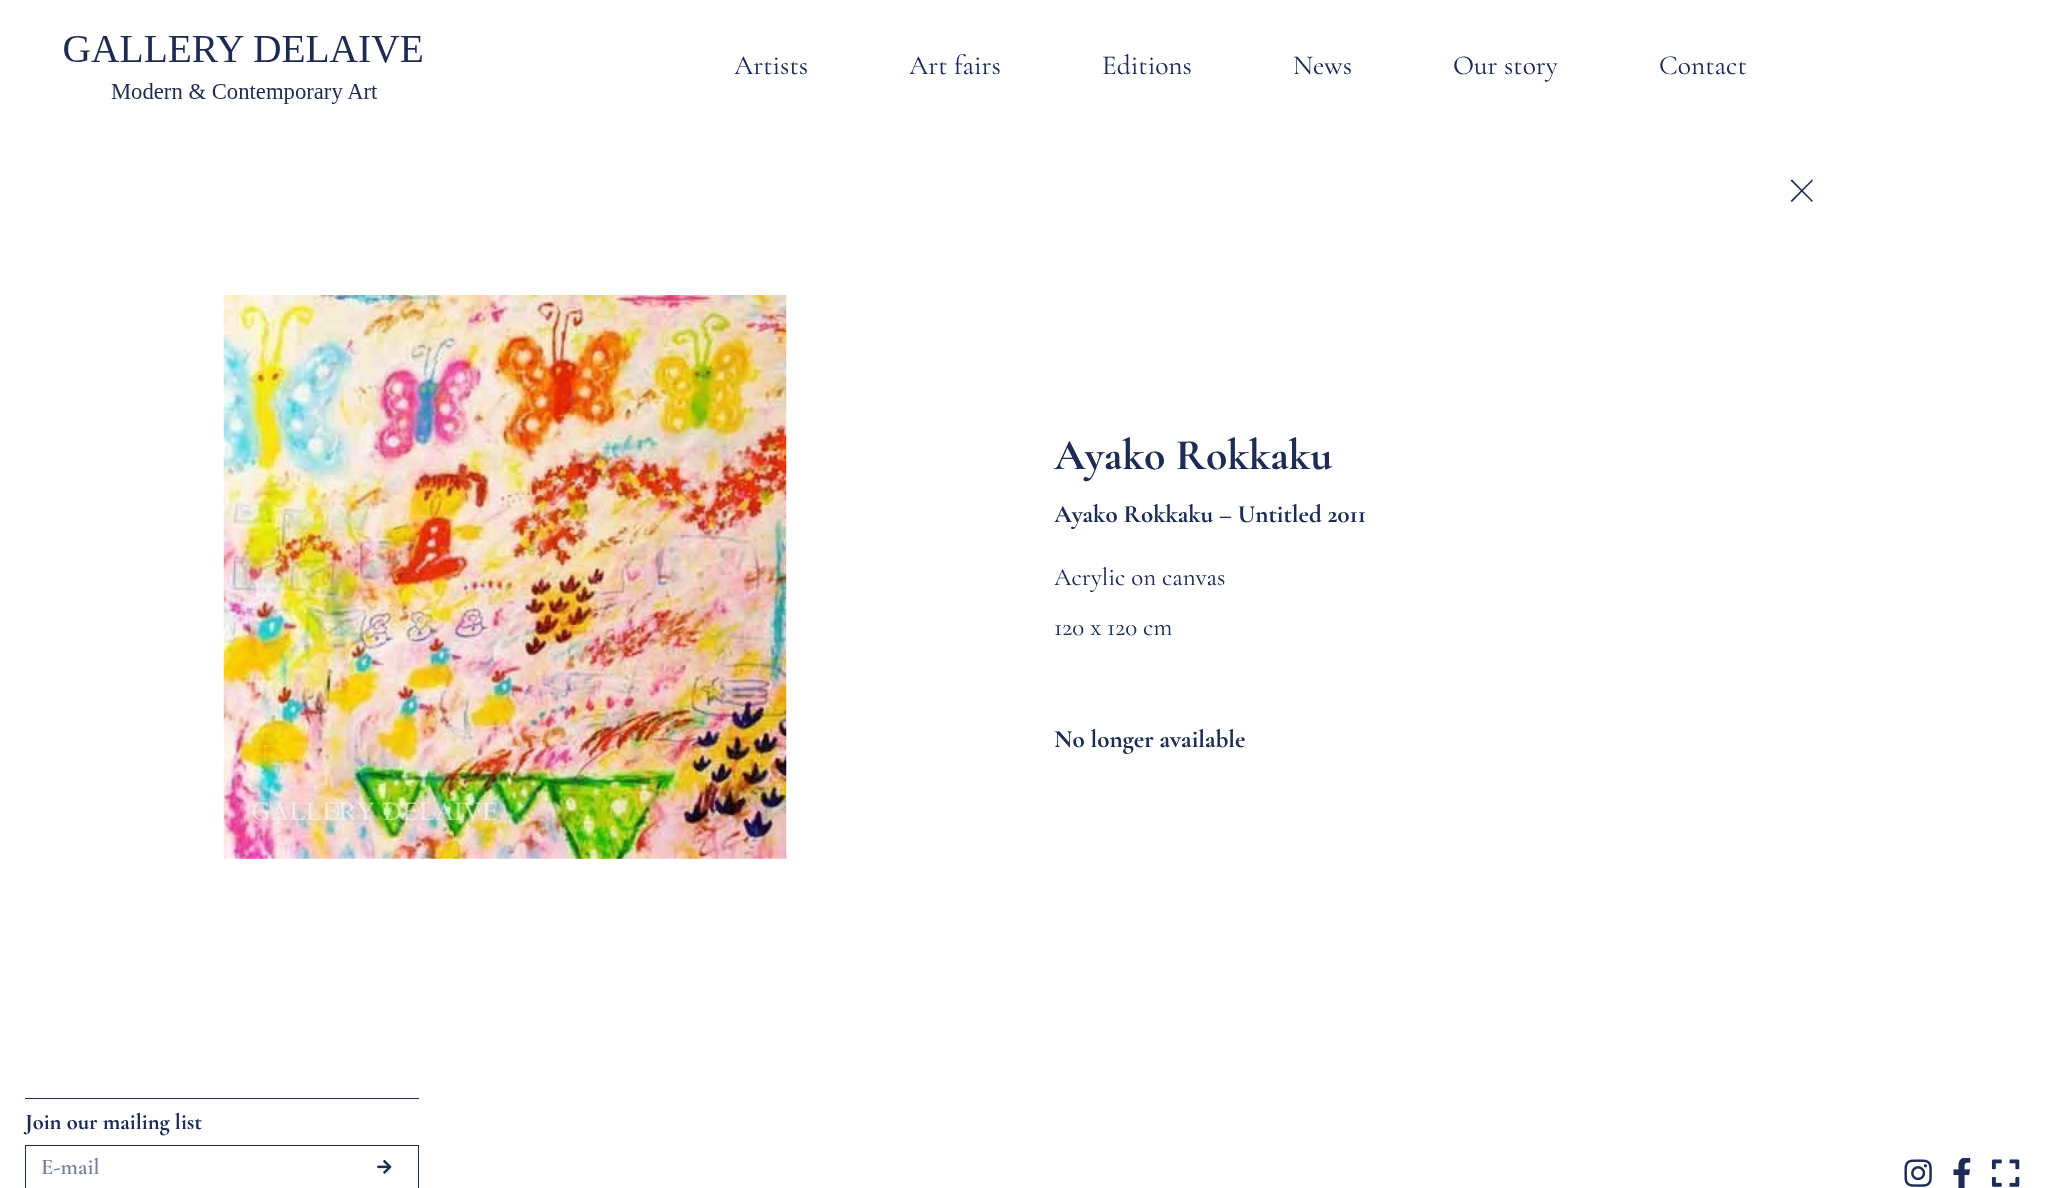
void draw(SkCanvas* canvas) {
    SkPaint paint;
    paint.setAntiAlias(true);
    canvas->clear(0xFFFFFFFF);
    canvas->drawImageRect(SkImages::DeferredFromEncodedData(SkData::MakeFromFileName("img1.png")), SkRect::MakeXYWH(64, 36, 358, 68), SkSamplingOptions());
    SkFont font1(fontMgr->matchFamilyStyle("Cormorant Garamond", SkFontStyle::Normal()), 27.5f);
    font1.setSubpixel(true);
    paint.setColor(0xFF1C2C54);
    canvas->drawString("Artists", 734, 74, font1, paint);
    canvas->drawString("Art fairs", 909, 74, font1, paint);
    canvas->drawString("Editions", 1102, 74, font1, paint);
    canvas->drawString("News", 1293, 74, font1, paint);
    canvas->drawString("Our story", 1453, 74, font1, paint);
    canvas->drawString("Contact", 1659, 74, font1, paint);
    canvas->drawImageRect(SkImages::DeferredFromEncodedData(SkData::MakeFromFileName("img2.png")), SkRect::MakeXYWH(223, 295, 564, 564), SkSamplingOptions());
    paint.setColor(0xFF1D2B54);
    canvas->drawPath(SkPathBuilder().moveTo(1792, 179.5f).lineTo(1813, 201).lineTo(1812, 202).lineTo(1790.5f, 180.5f).close().detach(), paint);
    canvas->drawPath(SkPathBuilder().moveTo(1790.5f, 201).lineTo(1812, 179.5f).lineTo(1813, 180.5f).lineTo(1792, 202).close().detach(), paint);
    SkFont font2(fontMgr->matchFamilyStyle("Cormorant Garamond", SkFontStyle::Bold()), 43.75f);
    font2.setSubpixel(true);
    paint.setColor(0xFF1C2C54);
    canvas->drawString("Ayako Rokkaku", 1054, 469, font2, paint);
    SkFont font3(fontMgr->matchFamilyStyle("Cormorant Garamond", SkFontStyle::Bold()), 25);
    font3.setSubpixel(true);
    canvas->drawString("Ayako Rokkaku – Untitled 2011", 1054, 522, font3, paint);
    SkFont font4(fontMgr->matchFamilyStyle("Cormorant Garamond", SkFontStyle::Normal()), 25);
    font4.setSubpixel(true);
    canvas->drawString("Acrylic on canvas", 1054, 585, font4, paint);
    canvas->drawString("120 x 120 cm", 1054, 635, font4, paint);
    canvas->drawString("No longer available", 1054, 747, font3, paint);
    canvas->drawRect(SkRect::MakeXYWH(25, 1098, 394, 1), paint);
    SkFont font5(fontMgr->matchFamilyStyle("Cormorant Garamond", SkFontStyle::Bold()), 22.5f);
    font5.setSubpixel(true);
    canvas->drawString("Join our mailing list", 25, 1129, font5, paint);
    paint.setStyle(SkPaint::kStroke_Style);
    paint.setStrokeWidth(1);
    canvas->drawRect(SkRect::MakeXYWH(25.5f, 1145.5f, 393, 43), paint);
    SkFont font6(fontMgr->matchFamilyStyle("Cormorant Garamond", SkFontStyle(600, SkFontStyle::kNormal_Width, SkFontStyle::kUpright_Slant)), 22.5f);
    font6.setSubpixel(true);
    paint.setStyle(SkPaint::kFill_Style);
    paint.setColor(0xFF778098);
    canvas->drawString("E-mail", 41, 1174, font6, paint);
    canvas->drawImageRect(SkImages::DeferredFromEncodedData(SkData::MakeFromFileName("img3.png")), SkRect::MakeXYWH(377, 1160, 15, 14), SkSamplingOptions());
    canvas->drawImageRect(SkImages::DeferredFromEncodedData(SkData::MakeFromFileName("img4.png")), SkRect::MakeXYWH(1904, 1159, 28, 28), SkSamplingOptions());
    canvas->drawImageRect(SkImages::DeferredFromEncodedData(SkData::MakeFromFileName("img5.png")), SkRect::MakeXYWH(1953, 1158, 18, 30), SkSamplingOptions());
    canvas->drawImageRect(SkImages::DeferredFromEncodedData(SkData::MakeFromFileName("img6.png")), SkRect::MakeXYWH(1991, 1159, 29, 28), SkSamplingOptions());
}
